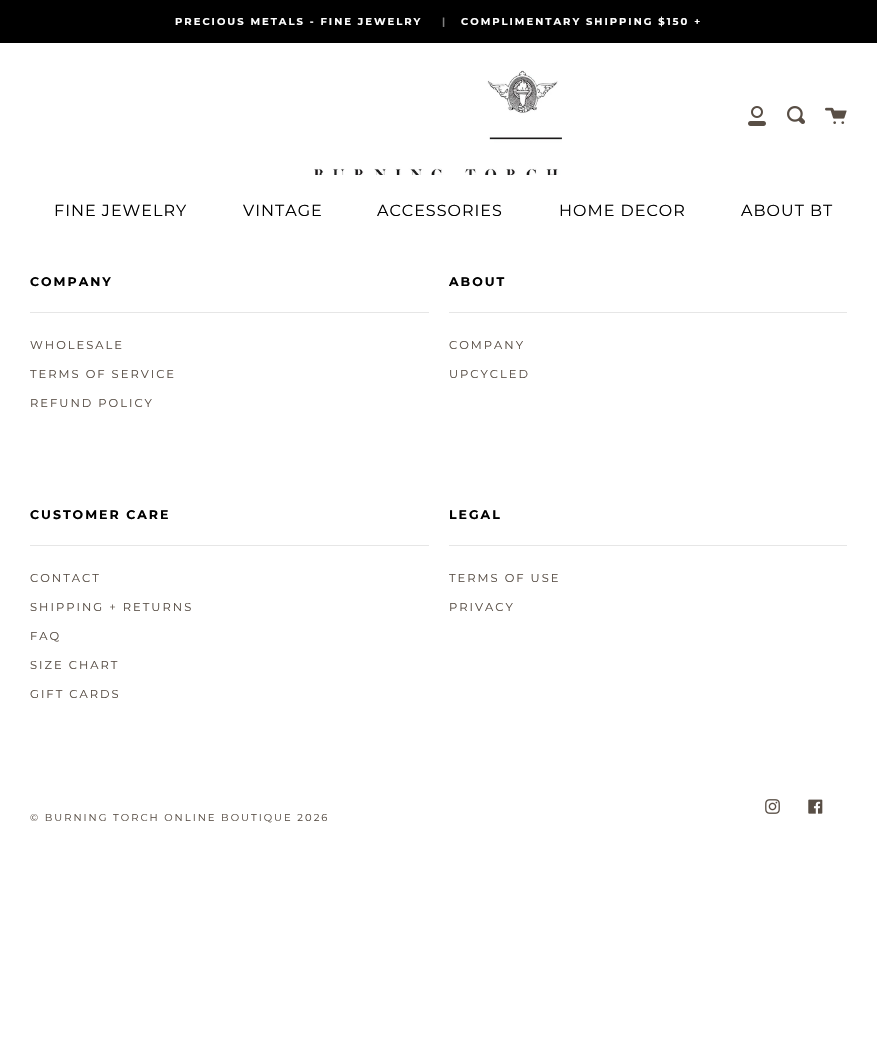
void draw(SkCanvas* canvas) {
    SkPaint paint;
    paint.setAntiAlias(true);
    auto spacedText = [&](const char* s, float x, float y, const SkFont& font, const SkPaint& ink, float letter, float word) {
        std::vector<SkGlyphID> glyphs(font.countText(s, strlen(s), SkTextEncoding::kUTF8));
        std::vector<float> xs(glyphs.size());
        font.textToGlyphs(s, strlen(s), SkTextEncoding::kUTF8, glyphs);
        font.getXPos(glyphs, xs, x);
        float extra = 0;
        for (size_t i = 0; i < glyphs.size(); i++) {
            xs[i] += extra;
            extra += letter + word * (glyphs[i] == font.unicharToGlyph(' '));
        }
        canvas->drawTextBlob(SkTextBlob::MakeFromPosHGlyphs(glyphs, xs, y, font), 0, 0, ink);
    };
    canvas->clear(0xFFFFFFFF);
    paint.setColor(0xFF000000);
    canvas->drawRect(SkRect::MakeXYWH(0, 0, 877, 43), paint);
    SkFont font1(fontMgr->matchFamilyStyle("Montserrat", SkFontStyle::Bold()), 10);
    font1.setSubpixel(true);
    paint.setColor(0xFFFFFFFF);
    spacedText("PRECIOUS METALS - FINE JEWELRY", 175, 25, font1, paint, 2, 0);
    paint.setColor(0xFF808080);
    spacedText("|", 442, 25, font1, paint, 2, 0);
    paint.setColor(0xFFFFFFFF);
    spacedText("COMPLIMENTARY SHIPPING $150 +", 461, 25, font1, paint, 2, 0);
    canvas->drawImageRect(SkImages::DeferredFromEncodedData(SkData::MakeFromFileName("img1.png")), SkRect::MakeXYWH(314, 70, 248, 105), SkSamplingOptions());
    canvas->drawImageRect(SkImages::DeferredFromEncodedData(SkData::MakeFromFileName("img2.png")), SkRect::MakeXYWH(748, 106, 18, 20), SkSamplingOptions());
    canvas->drawImageRect(SkImages::DeferredFromEncodedData(SkData::MakeFromFileName("img3.png")), SkRect::MakeXYWH(787, 106, 18, 18), SkSamplingOptions());
    canvas->drawImageRect(SkImages::DeferredFromEncodedData(SkData::MakeFromFileName("img4.png")), SkRect::MakeXYWH(825, 107, 22, 17), SkSamplingOptions());
    SkFont font2(fontMgr->matchFamilyStyle("Montserrat", SkFontStyle::Normal()), 16);
    font2.setSubpixel(true);
    paint.setColor(0xFF000000);
    spacedText("FINE JEWELRY", 54, 216, font2, paint, 1, 0);
    spacedText("VINTAGE", 243, 216, font2, paint, 1, 0);
    spacedText("ACCESSORIES", 377, 216, font2, paint, 1, 0);
    spacedText("HOME DECOR", 559, 216, font2, paint, 1, 0);
    spacedText("ABOUT BT", 741, 216, font2, paint, 1, 0);
    SkFont font3(fontMgr->matchFamilyStyle("Montserrat", SkFontStyle::Bold()), 12.5f);
    font3.setSubpixel(true);
    spacedText("COMPANY", 30, 286, font3, paint, 2, 0);
    paint.setColor(0xFFE6E6E6);
    canvas->drawRect(SkRect::MakeXYWH(30, 312, 399, 1), paint);
    SkFont font4(fontMgr->matchFamilyStyle("Montserrat", SkFontStyle::Normal()), 11.5f);
    font4.setSubpixel(true);
    paint.setColor(0xFF584E45);
    spacedText("WHOLESALE", 30, 349, font4, paint, 2, 0);
    spacedText("TERMS OF SERVICE", 30, 378, font4, paint, 2, 0);
    spacedText("REFUND POLICY", 30, 407, font4, paint, 2, 0);
    paint.setColor(0xFF000000);
    spacedText("ABOUT", 449, 286, font3, paint, 2, 0);
    paint.setColor(0xFFE6E6E6);
    canvas->drawRect(SkRect::MakeXYWH(449, 312, 398, 1), paint);
    paint.setColor(0xFF584E45);
    spacedText("COMPANY", 449, 349, font4, paint, 2, 0);
    spacedText("UPCYCLED", 449, 378, font4, paint, 2, 0);
    paint.setColor(0xFF000000);
    spacedText("CUSTOMER CARE", 30, 519, font3, paint, 2, 0);
    paint.setColor(0xFFE6E6E6);
    canvas->drawRect(SkRect::MakeXYWH(30, 545, 399, 1), paint);
    paint.setColor(0xFF584E45);
    spacedText("CONTACT", 30, 582, font4, paint, 2, 0);
    spacedText("SHIPPING + RETURNS", 30, 611, font4, paint, 2, 0);
    spacedText("FAQ", 30, 640, font4, paint, 2, 0);
    spacedText("SIZE CHART", 30, 669, font4, paint, 2, 0);
    spacedText("GIFT CARDS", 30, 698, font4, paint, 2, 0);
    paint.setColor(0xFF000000);
    spacedText("LEGAL", 449, 519, font3, paint, 2, 0);
    paint.setColor(0xFFE6E6E6);
    canvas->drawRect(SkRect::MakeXYWH(449, 545, 398, 1), paint);
    paint.setColor(0xFF584E45);
    spacedText("TERMS OF USE", 449, 582, font4, paint, 2, 0);
    spacedText("PRIVACY", 449, 611, font4, paint, 2, 0);
    canvas->drawImageRect(SkImages::DeferredFromEncodedData(SkData::MakeFromFileName("img5.png")), SkRect::MakeXYWH(765, 799, 15, 15), SkSamplingOptions());
    canvas->drawImageRect(SkImages::DeferredFromEncodedData(SkData::MakeFromFileName("img6.png")), SkRect::MakeXYWH(808, 799, 15, 15), SkSamplingOptions());
    SkFont font5(fontMgr->matchFamilyStyle("Montserrat", SkFontStyle::Normal()), 10);
    font5.setSubpixel(true);
    spacedText("© BURNING TORCH ONLINE BOUTIQUE 2026", 30, 821, font5, paint, 2, 0);
}
